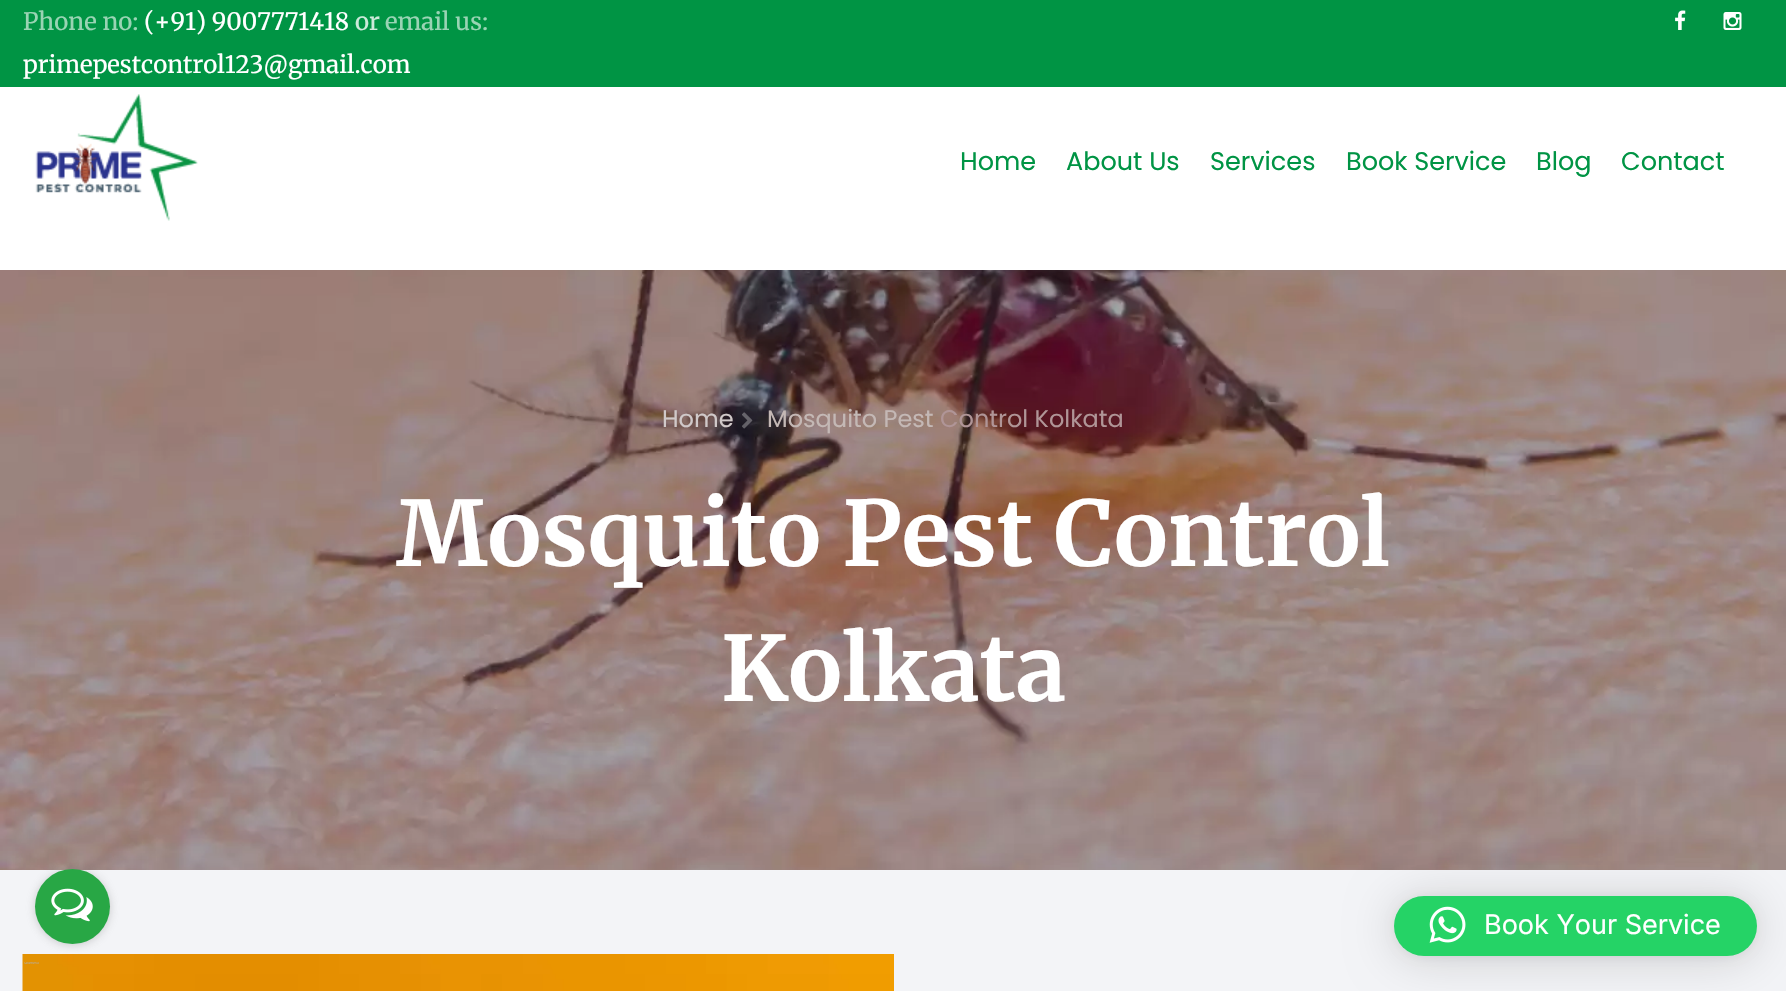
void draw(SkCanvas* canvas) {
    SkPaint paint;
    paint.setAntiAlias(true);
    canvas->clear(0xFFFFFFFF);
    paint.setColor(0xFF009444);
    canvas->drawRect(SkRect::MakeXYWH(0, 0, 1786, 87), paint);
    SkFont font1(fontMgr->matchFamilyStyle("Merriweather", SkFontStyle::Normal()), 24);
    font1.setSubpixel(true);
    paint.setColor(0xFF99D4B4);
    canvas->drawString("Phone no:", 23, 30, font1, paint);
    paint.setColor(0xFFFFFFFF);
    canvas->drawString("(+91) 9007771418", 144, 30, font1, paint);
    paint.setColor(0xFFCCEADA);
    canvas->drawString("or", 355, 30, font1, paint);
    paint.setColor(0xFF99D4B4);
    canvas->drawString("email us:", 385, 30, font1, paint);
    paint.setColor(0xFFFFFFFF);
    canvas->drawString("primepestcontrol123@gmail.com", 23, 73, font1, paint);
    canvas->drawImageRect(SkImages::DeferredFromEncodedData(SkData::MakeFromFileName("img1.png")), SkRect::MakeXYWH(1675, 10, 11, 20), SkSamplingOptions());
    canvas->drawImageRect(SkImages::DeferredFromEncodedData(SkData::MakeFromFileName("img2.png")), SkRect::MakeXYWH(1723, 12, 19, 18), SkSamplingOptions());
    canvas->drawImageRect(SkImages::DeferredFromEncodedData(SkData::MakeFromFileName("img3.png")), SkRect::MakeXYWH(35, 94, 163, 127), SkSamplingOptions());
    SkFont font2(fontMgr->matchFamilyStyle("Poppins", SkFontStyle::Normal()), 25.5f);
    font2.setSubpixel(true);
    paint.setColor(0xFF009444);
    canvas->drawString("Home", 960, 170, font2, paint);
    canvas->drawString("About Us", 1066, 170, font2, paint);
    canvas->drawString("Services", 1210, 170, font2, paint);
    canvas->drawString("Book Service", 1346, 170, font2, paint);
    canvas->drawString("Blog", 1536, 170, font2, paint);
    canvas->drawString("Contact", 1621, 170, font2, paint);
    canvas->drawImageRect(SkImages::DeferredFromEncodedData(SkData::MakeFromFileName("img4.png")), SkRect::MakeXYWH(0, 270, 1786, 600), SkSamplingOptions());
    SkFont font3(fontMgr->matchFamilyStyle("Poppins", SkFontStyle::Normal()), 24);
    font3.setSubpixel(true);
    paint.setColor(0xFFD0C9C9);
    canvas->drawString("Home", 662, 427, font3, paint);
    canvas->drawImageRect(SkImages::DeferredFromEncodedData(SkData::MakeFromFileName("img5.png")), SkRect::MakeXYWH(742, 412, 11, 17), SkSamplingOptions());
    paint.setColor(0xFFC4B8B5);
    canvas->drawString("Mosquito Pest", 767, 427, font3, paint);
    paint.setColor(0xFFB09597);
    canvas->drawString("Control Kolkata", 940, 427, font3, paint);
    SkFont font4(fontMgr->matchFamilyStyle("Merriweather", SkFontStyle::Bold()), 90);
    font4.setSubpixel(true);
    paint.setColor(0xFFFFFFFF);
    canvas->drawString("Mosquito Pest Control", 396, 566, font4, paint);
    canvas->drawString("Kolkata", 721, 701, font4, paint);
    paint.setColor(0xFFF3F4F7);
    canvas->drawRect(SkRect::MakeXYWH(0, 870, 1786, 121), paint);
    canvas->drawImageRect(SkImages::DeferredFromEncodedData(SkData::MakeFromFileName("img8.png")), SkRect::MakeXYWH(22, 954, 872, 37), SkSamplingOptions());
    paint.setColor(0x66888888);
    paint.setMaskFilter(SkMaskFilter::MakeBlur(kNormal_SkBlurStyle, 5));
    canvas->drawRoundRect(SkRect::MakeXYWH(35, 870, 75, 75), 37.5f, 37.5f, paint);
    paint.setMaskFilter(nullptr);
    paint.setColor(0xFF28A745);
    canvas->drawCircle(72.5f, 906.5f, 37.5f, paint);
    canvas->drawImageRect(SkImages::DeferredFromEncodedData(SkData::MakeFromFileName("img6.png")), SkRect::MakeXYWH(51, 888, 42, 34), SkSamplingOptions());
    canvas->drawImageRect(SkImages::DeferredFromEncodedData(SkData::MakeFromFileName("img7.png")), SkRect::MakeXYWH(24, 962, 15, 2), SkSamplingOptions());
    paint.setColor(0x29000000);
    paint.setMaskFilter(SkMaskFilter::MakeBlur(kNormal_SkBlurStyle, 24));
    canvas->drawRoundRect(SkRect::MakeXYWH(1394, 899, 363, 60), 30, 30, paint);
    paint.setMaskFilter(nullptr);
    paint.setColor(0x0F000000);
    paint.setMaskFilter(SkMaskFilter::MakeBlur(kNormal_SkBlurStyle, 4.5f));
    canvas->drawRoundRect(SkRect::MakeXYWH(1394, 897, 363, 60), 30, 30, paint);
    paint.setMaskFilter(nullptr);
    paint.setColor(0xFF25D366);
    canvas->drawRoundRect(SkRect::MakeXYWH(1394, 896, 363, 60), 30, 30, paint);
    canvas->drawImageRect(SkImages::DeferredFromEncodedData(SkData::MakeFromFileName("img9.png")), SkRect::MakeXYWH(1429, 906, 37, 37), SkSamplingOptions());
    SkFont font5(fontMgr->matchFamilyStyle("Inter", SkFontStyle::Normal()), 27);
    font5.setSubpixel(true);
    paint.setColor(0xFFFFFFFF);
    canvas->drawString("Book Your Service", 1484, 934, font5, paint);
}
